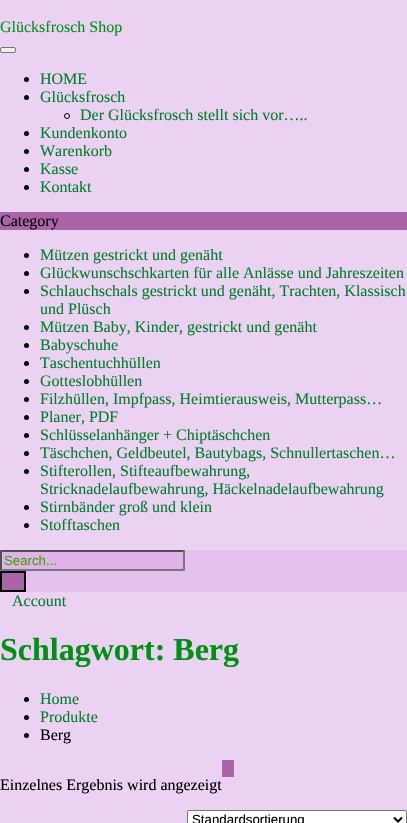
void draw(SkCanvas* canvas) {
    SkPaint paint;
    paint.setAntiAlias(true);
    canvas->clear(0xFFEBD2F2);
    SkFont font1(fontMgr->matchFamilyStyle("Liberation Serif", SkFontStyle::Normal()), 16);
    font1.setSubpixel(true);
    paint.setColor(0xFF009113);
    canvas->drawString("Glücksfrosch Shop", 0, 32, font1, paint);
    paint.setColor(0xFFEFEFEF);
    canvas->drawRoundRect(SkRect::MakeXYWH(0.5f, 47.5f, 15, 5), 1.5f, 1.5f, paint);
    paint.setStyle(SkPaint::kStroke_Style);
    paint.setStrokeWidth(1);
    paint.setColor(0xFF767676);
    canvas->drawRoundRect(SkRect::MakeXYWH(0.5f, 47.5f, 15, 5), 1.5f, 1.5f, paint);
    paint.setStyle(SkPaint::kFill_Style);
    paint.setColor(0xFF000000);
    canvas->drawCircle(26.5f, 79.5f, 2.5f, paint);
    paint.setColor(0xFF007F2A);
    canvas->drawString("HOME", 40, 84, font1, paint);
    paint.setColor(0xFF000000);
    canvas->drawCircle(26.5f, 97.5f, 2.5f, paint);
    paint.setColor(0xFF007F2A);
    canvas->drawString("Glücksfrosch", 40, 102, font1, paint);
    paint.setStyle(SkPaint::kStroke_Style);
    paint.setColor(0xFF000000);
    canvas->drawCircle(67, 116, 2.5f, paint);
    paint.setStyle(SkPaint::kFill_Style);
    paint.setColor(0xFF007F2A);
    canvas->drawString("Der Glücksfrosch stellt sich vor…..", 80, 120, font1, paint);
    paint.setColor(0xFF000000);
    canvas->drawCircle(26.5f, 133.5f, 2.5f, paint);
    paint.setColor(0xFF007F2A);
    canvas->drawString("Kundenkonto", 40, 138, font1, paint);
    paint.setColor(0xFF000000);
    canvas->drawCircle(26.5f, 151.5f, 2.5f, paint);
    paint.setColor(0xFF007F2A);
    canvas->drawString("Warenkorb", 40, 156, font1, paint);
    paint.setColor(0xFF000000);
    canvas->drawCircle(26.5f, 169.5f, 2.5f, paint);
    paint.setColor(0xFF007F2A);
    canvas->drawString("Kasse", 40, 174, font1, paint);
    paint.setColor(0xFF000000);
    canvas->drawCircle(26.5f, 187.5f, 2.5f, paint);
    paint.setColor(0xFF007F2A);
    canvas->drawString("Kontakt", 40, 192, font1, paint);
    paint.setColor(0xFFAA64A7);
    canvas->drawRect(SkRect::MakeXYWH(0, 212, 407, 18), paint);
    paint.setColor(0xFF000000);
    canvas->drawString("Category", 0, 226, font1, paint);
    canvas->drawCircle(26.5f, 255.5f, 2.5f, paint);
    paint.setColor(0xFF007F2A);
    canvas->drawString("Mützen gestrickt und genäht", 40, 260, font1, paint);
    paint.setColor(0xFF000000);
    canvas->drawCircle(26.5f, 273.5f, 2.5f, paint);
    paint.setColor(0xFF007F2A);
    canvas->drawString("Glückwunschschkarten für alle Anlässe und Jahreszeiten", 40, 278, font1, paint);
    paint.setColor(0xFF000000);
    canvas->drawCircle(26.5f, 291.5f, 2.5f, paint);
    paint.setColor(0xFF007F2A);
    canvas->drawString("Schlauchschals gestrickt und genäht, Trachten, Klassisch", 40, 296, font1, paint);
    canvas->drawString("und Plüsch", 40, 314, font1, paint);
    paint.setColor(0xFF000000);
    canvas->drawCircle(26.5f, 327.5f, 2.5f, paint);
    paint.setColor(0xFF007F2A);
    canvas->drawString("Mützen Baby, Kinder, gestrickt und genäht", 40, 332, font1, paint);
    paint.setColor(0xFF000000);
    canvas->drawCircle(26.5f, 345.5f, 2.5f, paint);
    paint.setColor(0xFF007F2A);
    canvas->drawString("Babyschuhe", 40, 350, font1, paint);
    paint.setColor(0xFF000000);
    canvas->drawCircle(26.5f, 363.5f, 2.5f, paint);
    paint.setColor(0xFF007F2A);
    canvas->drawString("Taschentuchhüllen", 40, 368, font1, paint);
    paint.setColor(0xFF000000);
    canvas->drawCircle(26.5f, 381.5f, 2.5f, paint);
    paint.setColor(0xFF007F2A);
    canvas->drawString("Gotteslobhüllen", 40, 386, font1, paint);
    paint.setColor(0xFF000000);
    canvas->drawCircle(26.5f, 399.5f, 2.5f, paint);
    paint.setColor(0xFF007F2A);
    canvas->drawString("Filzhüllen, Impfpass, Heimtierausweis, Mutterpass…", 40, 404, font1, paint);
    paint.setColor(0xFF000000);
    canvas->drawCircle(26.5f, 417.5f, 2.5f, paint);
    paint.setColor(0xFF007F2A);
    canvas->drawString("Planer, PDF", 40, 422, font1, paint);
    paint.setColor(0xFF000000);
    canvas->drawCircle(26.5f, 435.5f, 2.5f, paint);
    paint.setColor(0xFF007F2A);
    canvas->drawString("Schlüsselanhänger + Chiptäschchen", 40, 440, font1, paint);
    paint.setColor(0xFF000000);
    canvas->drawCircle(26.5f, 453.5f, 2.5f, paint);
    paint.setColor(0xFF007F2A);
    canvas->drawString("Täschchen, Geldbeutel, Bautybags, Schnullertaschen…", 40, 458, font1, paint);
    paint.setColor(0xFF000000);
    canvas->drawCircle(26.5f, 471.5f, 2.5f, paint);
    paint.setColor(0xFF007F2A);
    canvas->drawString("Stifterollen, Stifteaufbewahrung,", 40, 476, font1, paint);
    canvas->drawString("Stricknadelaufbewahrung, Häckelnadelaufbewahrung", 40, 494, font1, paint);
    paint.setColor(0xFF000000);
    canvas->drawCircle(26.5f, 507.5f, 2.5f, paint);
    paint.setColor(0xFF007F2A);
    canvas->drawString("Stirnbänder groß und klein", 40, 512, font1, paint);
    paint.setColor(0xFF000000);
    canvas->drawCircle(26.5f, 525.5f, 2.5f, paint);
    paint.setColor(0xFF007F2A);
    canvas->drawString("Stofftaschen", 40, 530, font1, paint);
    paint.setColor(0xFFE5C1EE);
    canvas->drawRect(SkRect::MakeXYWH(26, 550, 381, 42), paint);
    paint.setColor(0xFFE0B2EA);
    canvas->drawRect(SkRect::MakeXYWH(0, 550, 185, 21), paint);
    paint.setColor(0xFF4F4F4F);
    canvas->drawPath(SkPathBuilder().moveTo(0, 550).lineTo(185, 550).lineTo(183, 552).lineTo(2, 552).close().detach(), paint);
    paint.setColor(0xFF767676);
    canvas->drawPath(SkPathBuilder().moveTo(185, 550).lineTo(185, 571).lineTo(183, 569).lineTo(183, 552).close().detach(), paint);
    canvas->drawPath(SkPathBuilder().moveTo(185, 571).lineTo(0, 571).lineTo(2, 569).lineTo(183, 569).close().detach(), paint);
    paint.setColor(0xFF4F4F4F);
    canvas->drawPath(SkPathBuilder().moveTo(0, 571).lineTo(0, 550).lineTo(2, 552).lineTo(2, 569).close().detach(), paint);
    SkFont font2(fontMgr->matchFamilyStyle("Liberation Sans", SkFontStyle::Normal()), 13.25f);
    font2.setSubpixel(true);
    paint.setColor(0xFF3EA300);
    canvas->drawString("Search...", 4, 565, font2, paint);
    paint.setColor(0xFFAA64A7);
    canvas->drawRect(SkRect::MakeXYWH(1, 572, 24, 19), paint);
    paint.setStyle(SkPaint::kStroke_Style);
    paint.setStrokeWidth(2);
    paint.setColor(0xFF000000);
    canvas->drawRect(SkRect::MakeXYWH(1, 572, 24, 19), paint);
    paint.setStyle(SkPaint::kFill_Style);
    paint.setColor(0xFF007F2A);
    canvas->drawString("Account", 12, 606, font1, paint);
    SkFont font3(fontMgr->matchFamilyStyle("Liberation Serif", SkFontStyle::Bold()), 32);
    font3.setSubpixel(true);
    paint.setColor(0xFF009113);
    canvas->drawString("Schlagwort: Berg", 0, 660, font3, paint);
    paint.setColor(0xFF000000);
    canvas->drawCircle(26.5f, 699.5f, 2.5f, paint);
    paint.setColor(0xFF007F2A);
    canvas->drawString("Home", 40, 704, font1, paint);
    paint.setColor(0xFF000000);
    canvas->drawCircle(26.5f, 717.5f, 2.5f, paint);
    paint.setColor(0xFF007F2A);
    canvas->drawString("Produkte", 40, 722, font1, paint);
    paint.setColor(0xFF000000);
    canvas->drawCircle(26.5f, 735.5f, 2.5f, paint);
    canvas->drawString("Berg", 40, 740, font1, paint);
    paint.setColor(0xFFAA64A7);
    canvas->drawRect(SkRect::MakeXYWH(222, 760, 12, 17), paint);
    paint.setColor(0xFF000000);
    canvas->drawString("Einzelnes Ergebnis wird angezeigt", 0, 790, font1, paint);
    paint.setColor(0xFFFFFFFF);
    canvas->drawRoundRect(SkRect::MakeXYWH(187.5f, 810.5f, 219, 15), 1.5f, 1.5f, paint);
    paint.setStyle(SkPaint::kStroke_Style);
    paint.setStrokeWidth(1);
    paint.setColor(0xFF767676);
    canvas->drawRoundRect(SkRect::MakeXYWH(187.5f, 810.5f, 219, 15), 1.5f, 1.5f, paint);
    paint.setStrokeWidth(2);
    paint.setColor(0xFF000000);
    canvas->drawPath(SkPathBuilder().moveTo(394, 817.5f).lineTo(398, 821.5f).lineTo(402, 817.5f).detach(), paint);
    paint.setStyle(SkPaint::kFill_Style);
    canvas->drawString("Standardsortierung", 192, 824, font2, paint);
}
